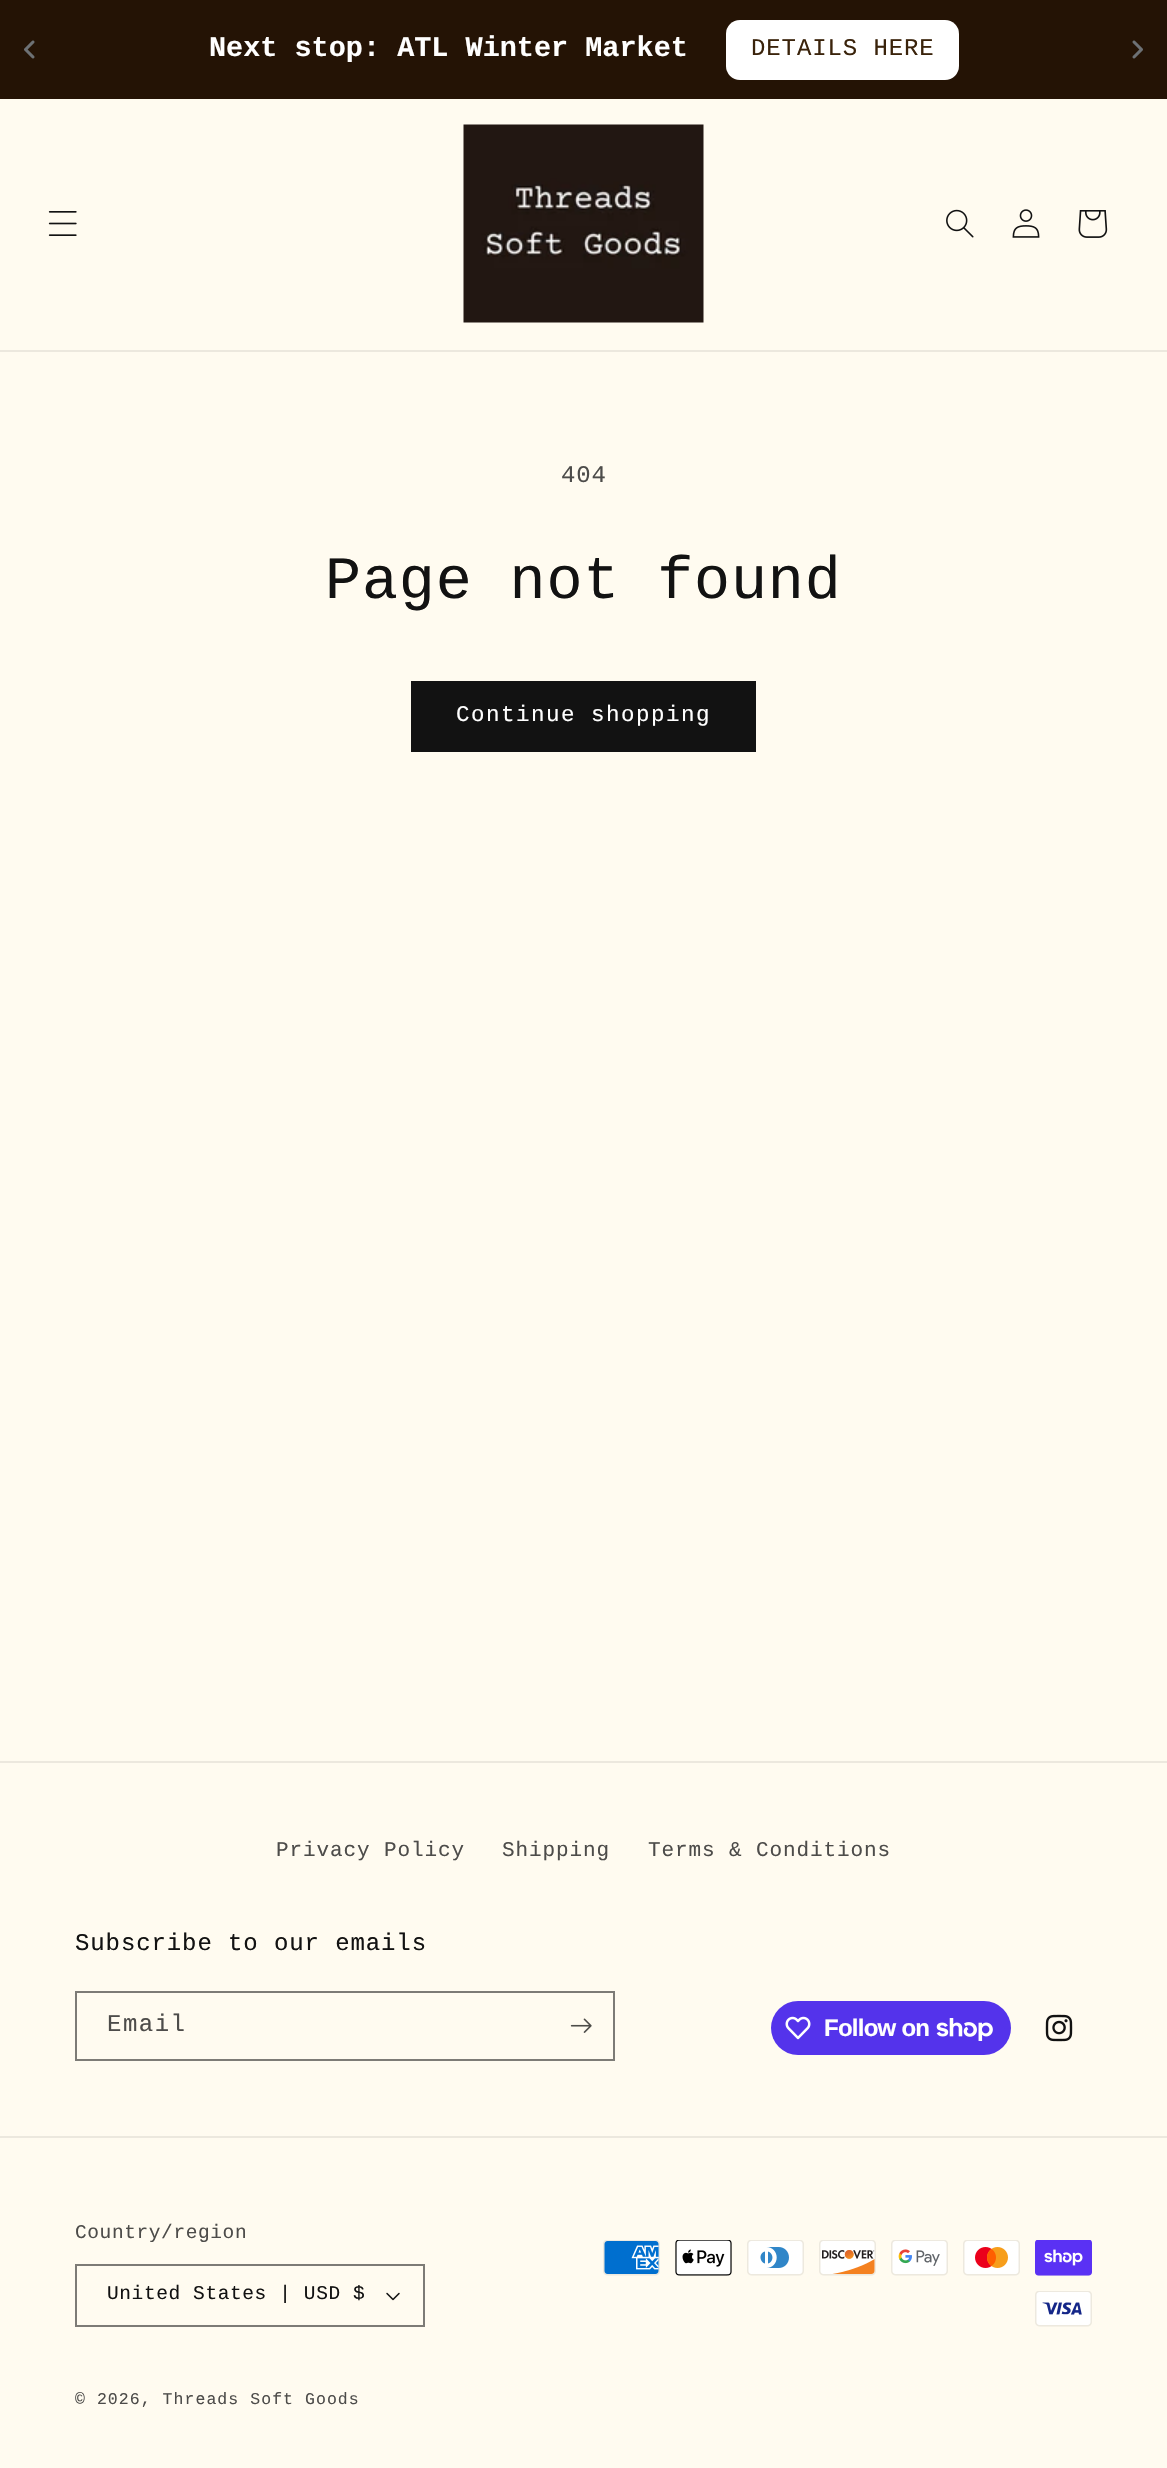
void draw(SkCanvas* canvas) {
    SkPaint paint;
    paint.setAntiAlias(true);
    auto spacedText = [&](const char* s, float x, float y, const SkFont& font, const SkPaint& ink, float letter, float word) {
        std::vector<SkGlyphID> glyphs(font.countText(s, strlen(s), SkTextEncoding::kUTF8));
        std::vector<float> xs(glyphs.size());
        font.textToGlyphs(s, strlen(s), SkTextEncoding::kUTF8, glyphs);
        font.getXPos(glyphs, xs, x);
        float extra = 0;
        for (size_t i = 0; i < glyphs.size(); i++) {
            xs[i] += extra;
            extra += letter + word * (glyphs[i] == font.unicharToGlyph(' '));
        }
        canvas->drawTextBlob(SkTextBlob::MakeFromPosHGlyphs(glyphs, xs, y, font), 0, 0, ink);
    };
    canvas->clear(0xFFFFFBF0);
    paint.setColor(0xFF241305);
    canvas->drawRect(SkRect::MakeXYWH(0, 0, 1167, 99), paint);
    SkFont font1(fontMgr->matchFamilyStyle("Liberation Mono", SkFontStyle::Bold()), 28.5f);
    font1.setSubpixel(true);
    paint.setColor(0xFFFFFFFF);
    canvas->drawString("Next stop: ATL Winter Market", 209, 56, font1, paint);
    canvas->drawRoundRect(SkRect::MakeXYWH(726, 20, 233, 60), 14, 14, paint);
    SkFont font2(fontMgr->matchFamilyStyle("Liberation Mono", SkFontStyle::Normal()), 24);
    font2.setSubpixel(true);
    paint.setColor(0xFF3A230B);
    spacedText("DETAILS HERE", 751, 55, font2, paint, 0.9f, 0);
    canvas->drawImageRect(SkImages::DeferredFromEncodedData(SkData::MakeFromFileName("img1.png")), SkRect::MakeXYWH(24, 40, 11, 19), SkSamplingOptions());
    canvas->drawImageRect(SkImages::DeferredFromEncodedData(SkData::MakeFromFileName("img2.png")), SkRect::MakeXYWH(1132, 40, 11, 19), SkSamplingOptions());
    paint.setColor(0xFFECE8DE);
    canvas->drawRect(SkRect::MakeXYWH(0, 350, 1167, 2), paint);
    canvas->drawImageRect(SkImages::DeferredFromEncodedData(SkData::MakeFromFileName("img3.png")), SkRect::MakeXYWH(48, 211, 29, 25), SkSamplingOptions());
    canvas->drawImageRect(SkImages::DeferredFromEncodedData(SkData::MakeFromFileName("img4.png")), SkRect::MakeXYWH(463, 124, 241, 199), SkSamplingOptions());
    canvas->drawImageRect(SkImages::DeferredFromEncodedData(SkData::MakeFromFileName("img5.png")), SkRect::MakeXYWH(946, 209, 28, 29), SkSamplingOptions());
    canvas->drawImageRect(SkImages::DeferredFromEncodedData(SkData::MakeFromFileName("img6.png")), SkRect::MakeXYWH(1012, 209, 28, 29), SkSamplingOptions());
    canvas->drawImageRect(SkImages::DeferredFromEncodedData(SkData::MakeFromFileName("img7.png")), SkRect::MakeXYWH(1078, 210, 30, 28), SkSamplingOptions());
    paint.setColor(0xFF4D4C4A);
    spacedText("404", 561, 482, font2, paint, 0.9f, 0);
    SkFont font3(fontMgr->matchFamilyStyle("Liberation Mono", SkFontStyle::Normal()), 60);
    font3.setSubpixel(true);
    paint.setColor(0xFF121212);
    spacedText("Page not found", 325, 598, font3, paint, 0.9f, 0);
    canvas->drawRect(SkRect::MakeXYWH(411, 681, 345, 71), paint);
    SkFont font4(fontMgr->matchFamilyStyle("Liberation Mono", SkFontStyle::Normal()), 22.5f);
    font4.setSubpixel(true);
    paint.setColor(0xFFFFFFFF);
    spacedText("Continue shopping", 456, 721, font4, paint, 1.5f, 0);
    paint.setColor(0xFFECE8DE);
    canvas->drawRect(SkRect::MakeXYWH(0, 1761, 1167, 2), paint);
    SkFont font5(fontMgr->matchFamilyStyle("Liberation Mono", SkFontStyle::Normal()), 21);
    font5.setSubpixel(true);
    paint.setColor(0xFF4D4C4A);
    spacedText("Privacy Policy", 276, 1856, font5, paint, 0.9f, 0);
    spacedText("Shipping", 502, 1856, font5, paint, 0.9f, 0);
    spacedText("Terms & Conditions", 648, 1856, font5, paint, 0.9f, 0);
    paint.setColor(0xFF121212);
    spacedText("Subscribe to our emails", 75, 1950, font2, paint, 0.9f, 0);
    paint.setStyle(SkPaint::kStroke_Style);
    paint.setStrokeWidth(2);
    paint.setColor(0xFF7D7B76);
    canvas->drawRect(SkRect::MakeXYWH(76, 1992, 538, 68), paint);
    paint.setStyle(SkPaint::kFill_Style);
    paint.setColor(0xFF4D4C4A);
    spacedText("Email", 107, 2031, font2, paint, 1.5f, 0);
    canvas->drawImageRect(SkImages::DeferredFromEncodedData(SkData::MakeFromFileName("img8.png")), SkRect::MakeXYWH(570, 2018, 22, 15), SkSamplingOptions());
    paint.setColor(0xFF5433EB);
    canvas->drawRoundRect(SkRect::MakeXYWH(771, 2001, 240, 54), 27, 27, paint);
    canvas->drawImageRect(SkImages::DeferredFromEncodedData(SkData::MakeFromFileName("img9.png")), SkRect::MakeXYWH(785, 2016, 26, 24), SkSamplingOptions());
    SkFont font6(fontMgr->matchFamilyStyle("Liberation Sans", SkFontStyle::Bold()), 24);
    font6.setSubpixel(true);
    paint.setColor(0xFFFFFFFF);
    spacedText("Follow on", 824, 2036, font6, paint, -0.75f, 0);
    canvas->drawImageRect(SkImages::DeferredFromEncodedData(SkData::MakeFromFileName("img10.png")), SkRect::MakeXYWH(936, 2018, 57, 23), SkSamplingOptions());
    canvas->drawImageRect(SkImages::DeferredFromEncodedData(SkData::MakeFromFileName("img11.png")), SkRect::MakeXYWH(1045, 2014, 28, 28), SkSamplingOptions());
    paint.setColor(0xFFECE8DE);
    canvas->drawRect(SkRect::MakeXYWH(0, 2136, 1167, 2), paint);
    SkFont font7(fontMgr->matchFamilyStyle("Liberation Mono", SkFontStyle::Normal()), 19.5f);
    font7.setSubpixel(true);
    paint.setColor(0xFF4D4C4A);
    spacedText("Country/region", 75, 2238, font7, paint, 0.6f, 0);
    canvas->drawImageRect(SkImages::DeferredFromEncodedData(SkData::MakeFromFileName("img12.png")), SkRect::MakeXYWH(386, 2292, 14, 9), SkSamplingOptions());
    paint.setStyle(SkPaint::kStroke_Style);
    paint.setColor(0xFF7D7B76);
    canvas->drawRect(SkRect::MakeXYWH(76, 2265, 348, 61), paint);
    paint.setStyle(SkPaint::kFill_Style);
    paint.setColor(0xFF121212);
    spacedText("United States | USD $", 107, 2299, font7, paint, 0.6f, 0);
    canvas->drawImageRect(SkImages::DeferredFromEncodedData(SkData::MakeFromFileName("img13.png")), SkRect::MakeXYWH(603, 2240, 57, 36), SkSamplingOptions());
    canvas->drawImageRect(SkImages::DeferredFromEncodedData(SkData::MakeFromFileName("img14.png")), SkRect::MakeXYWH(675, 2240, 57, 36), SkSamplingOptions());
    canvas->drawImageRect(SkImages::DeferredFromEncodedData(SkData::MakeFromFileName("img15.png")), SkRect::MakeXYWH(747, 2240, 57, 36), SkSamplingOptions());
    canvas->drawImageRect(SkImages::DeferredFromEncodedData(SkData::MakeFromFileName("img16.png")), SkRect::MakeXYWH(819, 2240, 57, 36), SkSamplingOptions());
    canvas->drawImageRect(SkImages::DeferredFromEncodedData(SkData::MakeFromFileName("img17.png")), SkRect::MakeXYWH(891, 2240, 57, 36), SkSamplingOptions());
    canvas->drawImageRect(SkImages::DeferredFromEncodedData(SkData::MakeFromFileName("img18.png")), SkRect::MakeXYWH(963, 2240, 57, 36), SkSamplingOptions());
    canvas->drawImageRect(SkImages::DeferredFromEncodedData(SkData::MakeFromFileName("img19.png")), SkRect::MakeXYWH(1035, 2240, 57, 36), SkSamplingOptions());
    canvas->drawImageRect(SkImages::DeferredFromEncodedData(SkData::MakeFromFileName("img20.png")), SkRect::MakeXYWH(1035, 2291, 57, 36), SkSamplingOptions());
    SkFont font8(fontMgr->matchFamilyStyle("Liberation Mono", SkFontStyle::Normal()), 16.5f);
    font8.setSubpixel(true);
    paint.setColor(0xFF4D4C4A);
    spacedText("© 2026, Threads Soft Goods", 75, 2404, font8, paint, 1.05f, 0);
}
